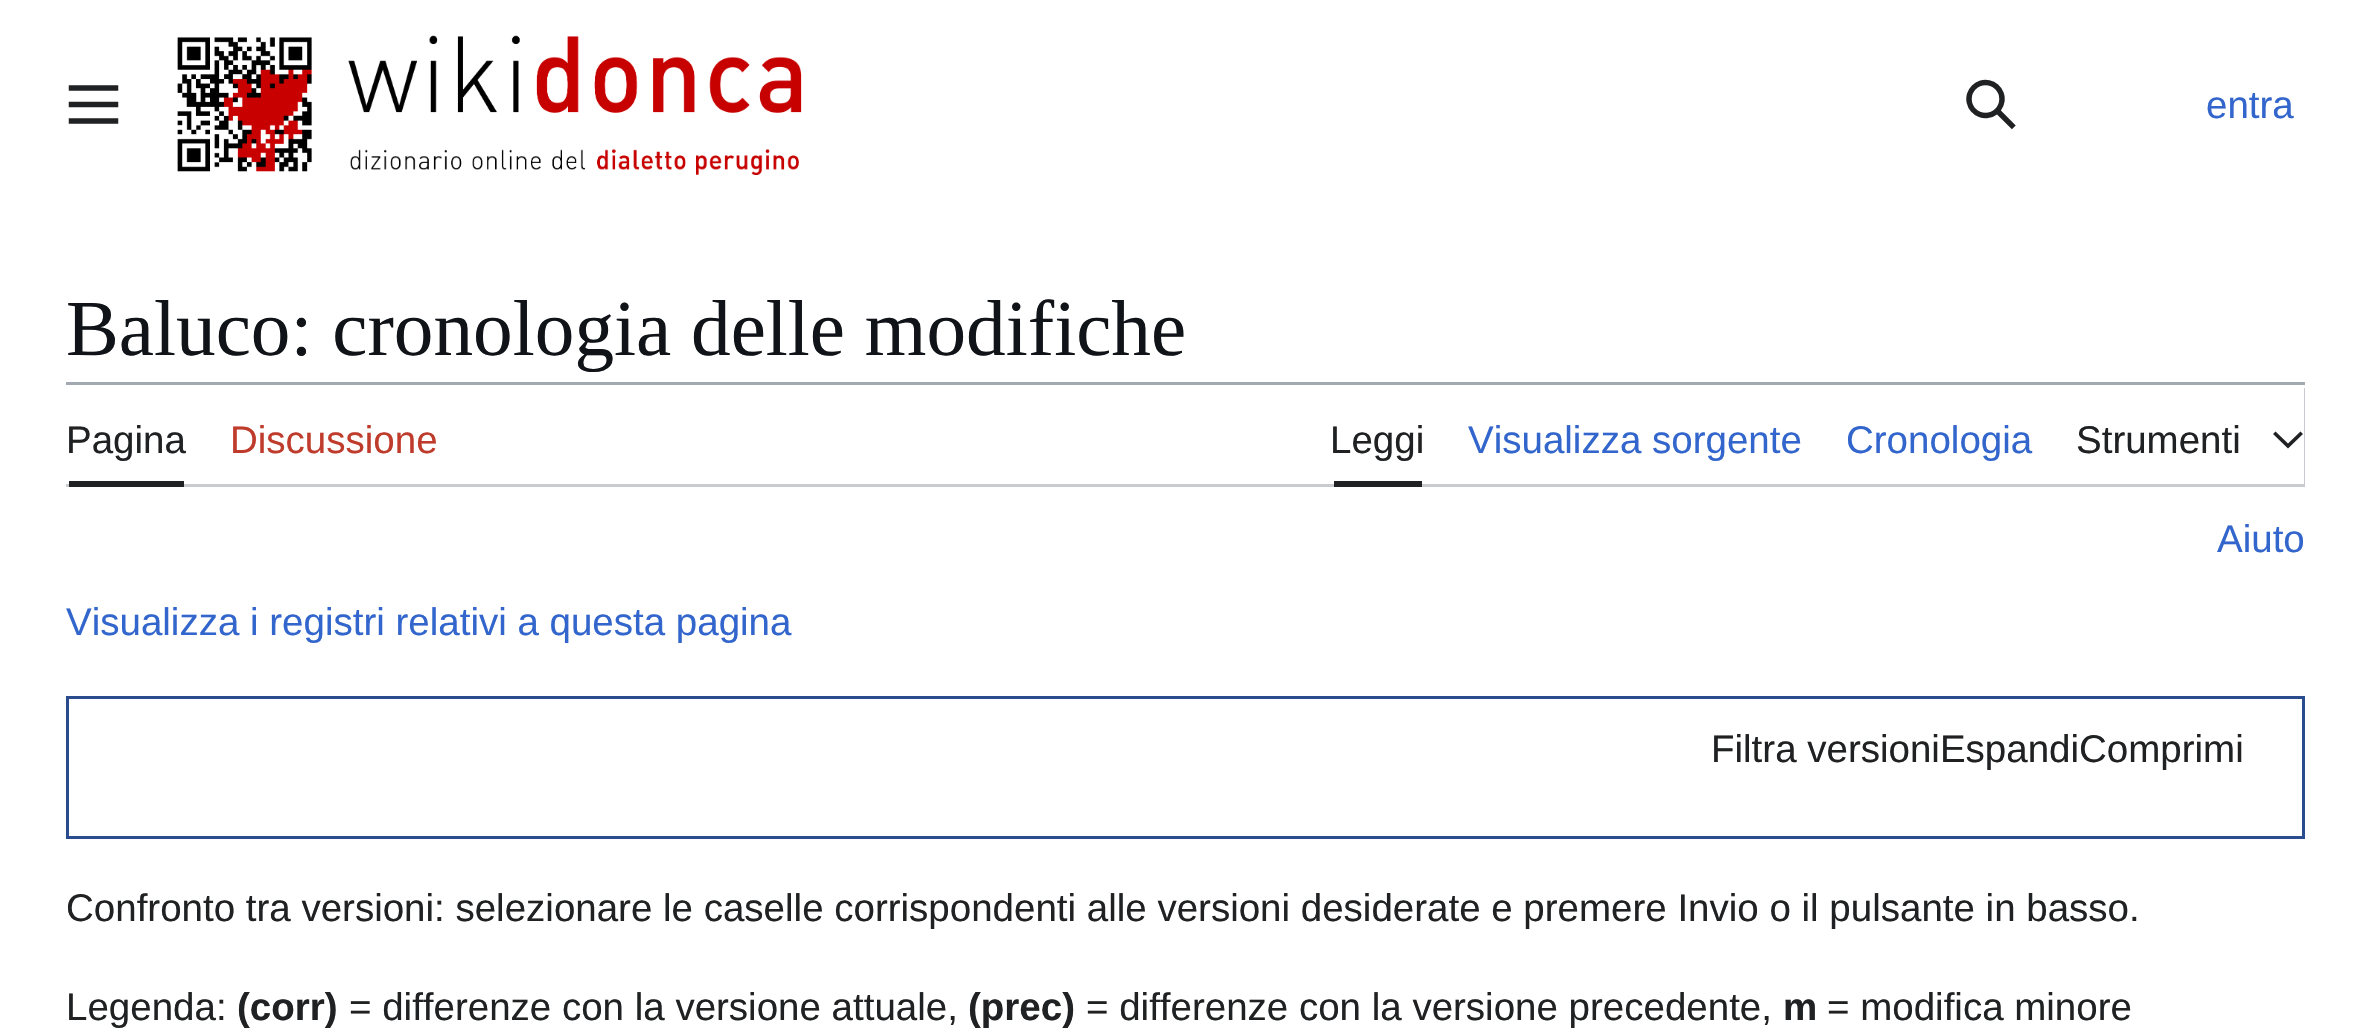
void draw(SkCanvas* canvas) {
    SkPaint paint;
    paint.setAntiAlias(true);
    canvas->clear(0xFFFFFFFF);
    canvas->drawImageRect(SkImages::DeferredFromEncodedData(SkData::MakeFromFileName("img1.png")), SkRect::MakeXYWH(68, 85, 51, 39), SkSamplingOptions());
    canvas->drawImageRect(SkImages::DeferredFromEncodedData(SkData::MakeFromFileName("img2.png")), SkRect::MakeXYWH(177, 37, 135, 135), SkSamplingOptions());
    canvas->drawImageRect(SkImages::DeferredFromEncodedData(SkData::MakeFromFileName("img3.png")), SkRect::MakeXYWH(348, 35, 454, 78), SkSamplingOptions());
    canvas->drawImageRect(SkImages::DeferredFromEncodedData(SkData::MakeFromFileName("img4.png")), SkRect::MakeXYWH(350, 149, 449, 26), SkSamplingOptions());
    canvas->drawImageRect(SkImages::DeferredFromEncodedData(SkData::MakeFromFileName("img5.png")), SkRect::MakeXYWH(1966, 79, 50, 51), SkSamplingOptions());
    SkFont font1(fontMgr->matchFamilyStyle("Liberation Sans", SkFontStyle::Normal()), 38.5f);
    font1.setSubpixel(true);
    paint.setColor(0xFF3366CC);
    canvas->drawString("entra", 2206, 118, font1, paint);
    SkFont font2(fontMgr->matchFamilyStyle("Liberation Serif", SkFontStyle::Normal()), 79.25f);
    font2.setSubpixel(true);
    paint.setColor(0xFF101418);
    canvas->drawString("Baluco: cronologia delle modifiche", 66, 355, font2, paint);
    paint.setColor(0xFFA2A9B1);
    canvas->drawRect(SkRect::MakeXYWH(66, 382, 2239, 3), paint);
    paint.setColor(0xFFC8CCD1);
    canvas->drawPath(SkPathBuilder().moveTo(66, 484).lineTo(66, 487).lineTo(2305, 487).lineTo(2305, 388).lineTo(2304, 388).lineTo(2304, 484).close().detach(), paint);
    paint.setColor(0xFF202122);
    canvas->drawRect(SkRect::MakeXYWH(69, 481, 115, 6), paint);
    canvas->drawString("Pagina", 66, 453, font1, paint);
    paint.setColor(0xFFBF3C2C);
    canvas->drawString("Discussione", 230, 453, font1, paint);
    paint.setColor(0xFF202122);
    canvas->drawRect(SkRect::MakeXYWH(1334, 481, 88, 6), paint);
    canvas->drawString("Leggi", 1330, 453, font1, paint);
    paint.setColor(0xFF3366CC);
    canvas->drawString("Visualizza sorgente", 1468, 453, font1, paint);
    canvas->drawString("Cronologia", 1846, 453, font1, paint);
    paint.setColor(0xFF202122);
    canvas->drawString("Strumenti", 2076, 453, font1, paint);
    canvas->drawPath(SkPathBuilder().moveTo(2300.5f, 431.5f).lineTo(2288, 443.5f).lineTo(2275.5f, 431.5f).lineTo(2273, 434).lineTo(2288, 448.5f).lineTo(2303, 434).close().detach(), paint);
    paint.setColor(0xFF3366CC);
    canvas->drawString("Aiuto", 2217, 552, font1, paint);
    canvas->drawString("Visualizza i registri relativi a questa pagina", 66, 635, font1, paint);
    paint.setStyle(SkPaint::kStroke_Style);
    paint.setStrokeWidth(3);
    paint.setColor(0xFF2A4B8D);
    canvas->drawRect(SkRect::MakeXYWH(67.5f, 697.5f, 2236, 140), paint);
    paint.setStyle(SkPaint::kFill_Style);
    paint.setColor(0xFF202122);
    canvas->drawString("Filtra versioniEspandiComprimi", 1711, 762, font1, paint);
    canvas->drawString("Confronto tra versioni: selezionare le caselle corrispondenti alle versioni desiderate e premere Invio o il pulsante in basso.", 66, 921, font1, paint);
    canvas->drawString("Legenda:", 66, 1020, font1, paint);
    SkFont font3(fontMgr->matchFamilyStyle("Liberation Sans", SkFontStyle::Bold()), 38.5f);
    font3.setSubpixel(true);
    canvas->drawString("(corr)", 237, 1020, font3, paint);
    canvas->drawString("= differenze con la versione attuale,", 349, 1020, font1, paint);
    canvas->drawString("(prec)", 968, 1020, font3, paint);
    canvas->drawString("= differenze con la versione precedente,", 1086, 1020, font1, paint);
    canvas->drawString("m", 1783, 1020, font3, paint);
    canvas->drawString("= modifica minore", 1827, 1020, font1, paint);
}
